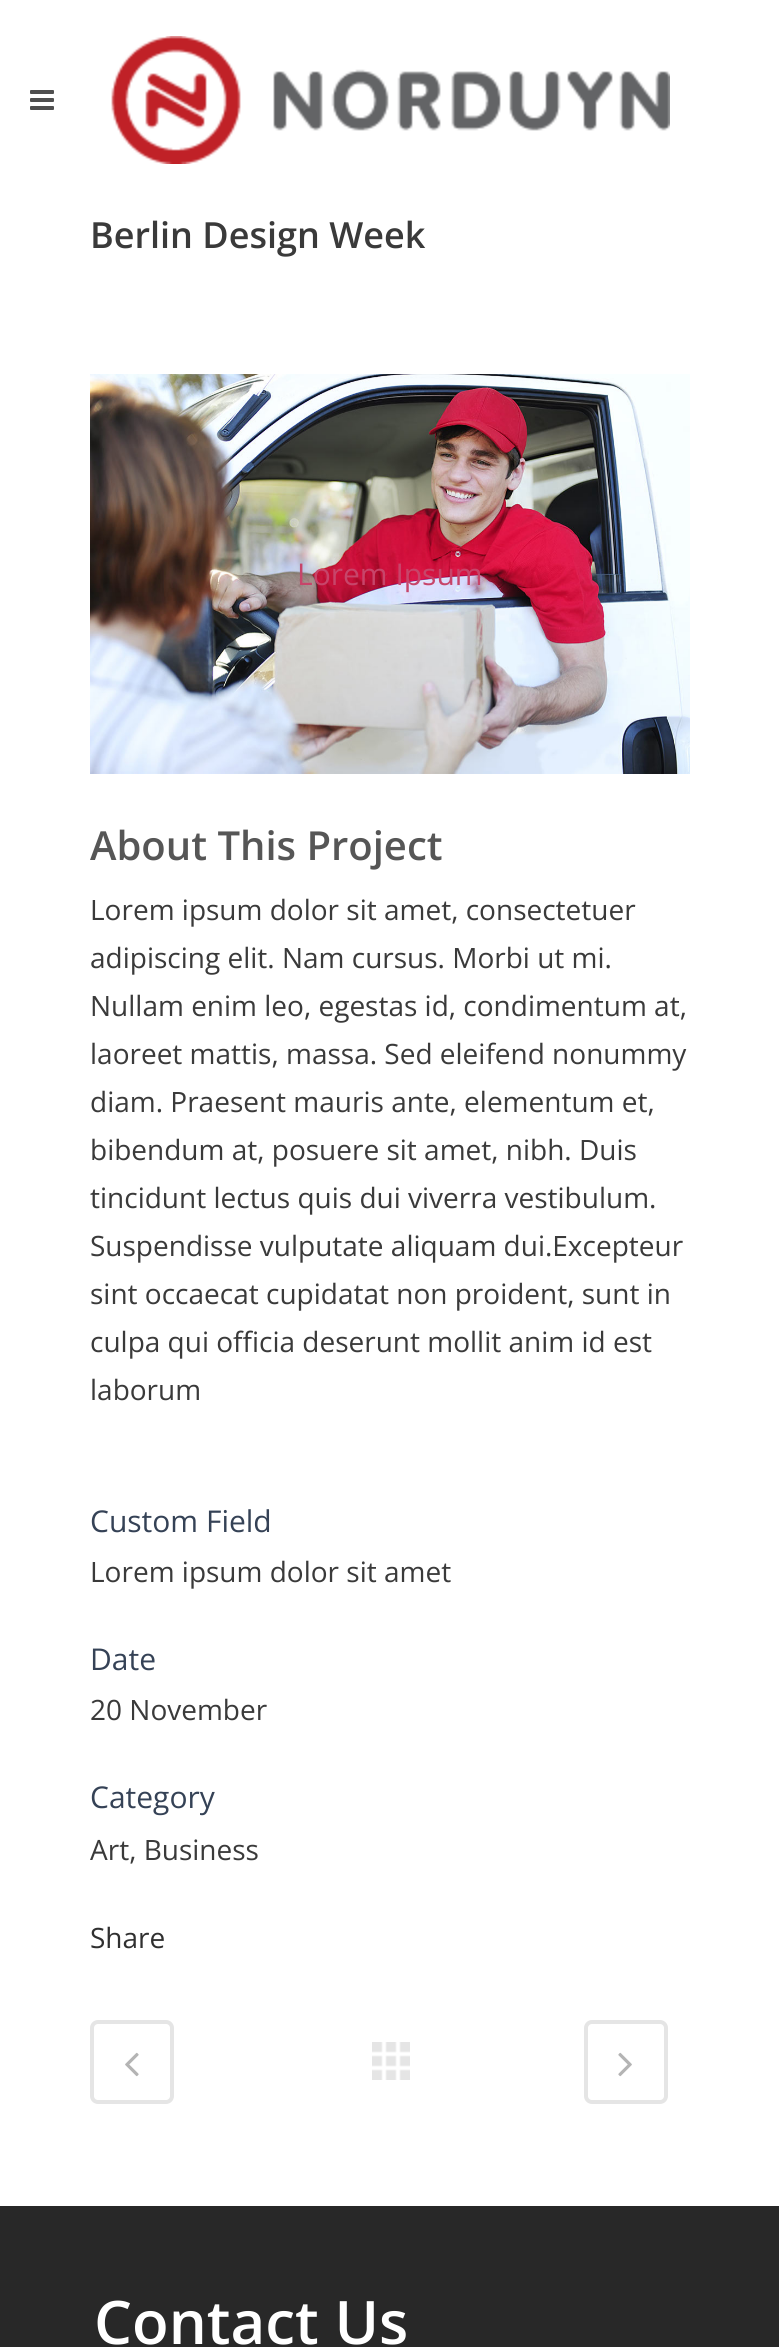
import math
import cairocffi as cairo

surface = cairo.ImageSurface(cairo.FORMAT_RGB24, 779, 2347)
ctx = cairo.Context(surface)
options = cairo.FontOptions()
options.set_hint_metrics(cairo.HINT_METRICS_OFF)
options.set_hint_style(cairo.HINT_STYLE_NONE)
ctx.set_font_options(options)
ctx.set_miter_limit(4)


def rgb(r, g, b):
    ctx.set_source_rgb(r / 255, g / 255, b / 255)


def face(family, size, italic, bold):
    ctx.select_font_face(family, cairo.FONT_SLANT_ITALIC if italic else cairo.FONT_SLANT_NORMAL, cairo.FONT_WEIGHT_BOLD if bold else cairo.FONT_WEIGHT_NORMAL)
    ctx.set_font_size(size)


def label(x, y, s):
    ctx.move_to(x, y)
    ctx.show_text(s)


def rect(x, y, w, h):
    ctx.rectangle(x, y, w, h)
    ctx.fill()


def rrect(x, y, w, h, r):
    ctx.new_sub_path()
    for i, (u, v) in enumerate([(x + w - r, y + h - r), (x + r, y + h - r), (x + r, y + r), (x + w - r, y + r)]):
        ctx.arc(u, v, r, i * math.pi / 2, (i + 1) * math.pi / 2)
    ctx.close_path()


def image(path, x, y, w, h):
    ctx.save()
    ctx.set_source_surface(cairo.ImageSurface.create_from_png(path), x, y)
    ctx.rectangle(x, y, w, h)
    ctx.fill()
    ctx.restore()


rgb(255, 255, 255)
ctx.paint()
image('image0.png', 30, 90, 24, 20)
image('image1.png', 111, 36, 559, 128)
face('Open Sans SemiBold', 36, 0, 0)
rgb(58, 58, 58)
label(90, 248, 'Berlin Design Week')
image('image2.png', 90, 374, 600, 400)
face('Open Sans', 30, 0, 0)
rgb(199, 69, 106)
label(297, 585, 'Lorem Ipsum')
face('Open Sans SemiBold', 40, 0, 0)
rgb(86, 86, 86)
label(90, 860, 'About This Project')
face('Open Sans', 28, 0, 0)
rgb(58, 58, 58)
label(90, 920, 'Lorem ipsum dolor sit amet, consectetuer')
label(90, 968, 'adipiscing elit. Nam cursus. Morbi ut mi.')
label(90, 1016, 'Nullam enim leo, egestas id, condimentum at,')
label(90, 1064, 'laoreet mattis, massa. Sed eleifend nonummy')
label(90, 1112, 'diam. Praesent mauris ante, elementum et,')
label(90, 1160, 'bibendum at, posuere sit amet, nibh. Duis')
label(90, 1208, 'tincidunt lectus quis dui viverra vestibulum.')
label(90, 1256, 'Suspendisse vulputate aliquam dui.Excepteur')
label(90, 1304, 'sint occaecat cupidatat non proident, sunt in')
label(90, 1352, 'culpa qui officia deserunt mollit anim id est')
label(90, 1400, 'laborum')
face('Open Sans', 30, 0, 0)
rgb(53, 66, 86)
label(90, 1532, 'Custom Field')
face('Open Sans', 28, 0, 0)
rgb(58, 58, 58)
label(90, 1582, 'Lorem ipsum dolor sit amet')
face('Open Sans', 30, 0, 0)
rgb(53, 66, 86)
label(90, 1670, 'Date')
face('Open Sans', 28, 0, 0)
rgb(58, 58, 58)
label(90, 1720, '20 November')
face('Open Sans', 30, 0, 0)
rgb(53, 66, 86)
label(90, 1808, 'Category')
face('Open Sans', 28, 0, 0)
rgb(58, 58, 58)
label(90, 1860, 'Art, Business')
rgb(48, 48, 48)
label(90, 1948, 'Share')
rrect(92, 2022, 80, 80, 6)
rgb(229, 229, 229)
ctx.set_line_width(4)
ctx.stroke()
image('image3.png', 125, 2052, 14, 25)
image('image4.png', 372, 2042, 38, 38)
rrect(586, 2022, 80, 80, 6)
ctx.stroke()
image('image5.png', 618, 2052, 14, 25)
rgb(40, 40, 40)
rect(0, 2206, 779, 141)
face('Open Sans SemiBold', 60, 0, 0)
rgb(255, 255, 255)
label(94, 2344, 'Contact Us')
surface.write_to_png('render.png')
